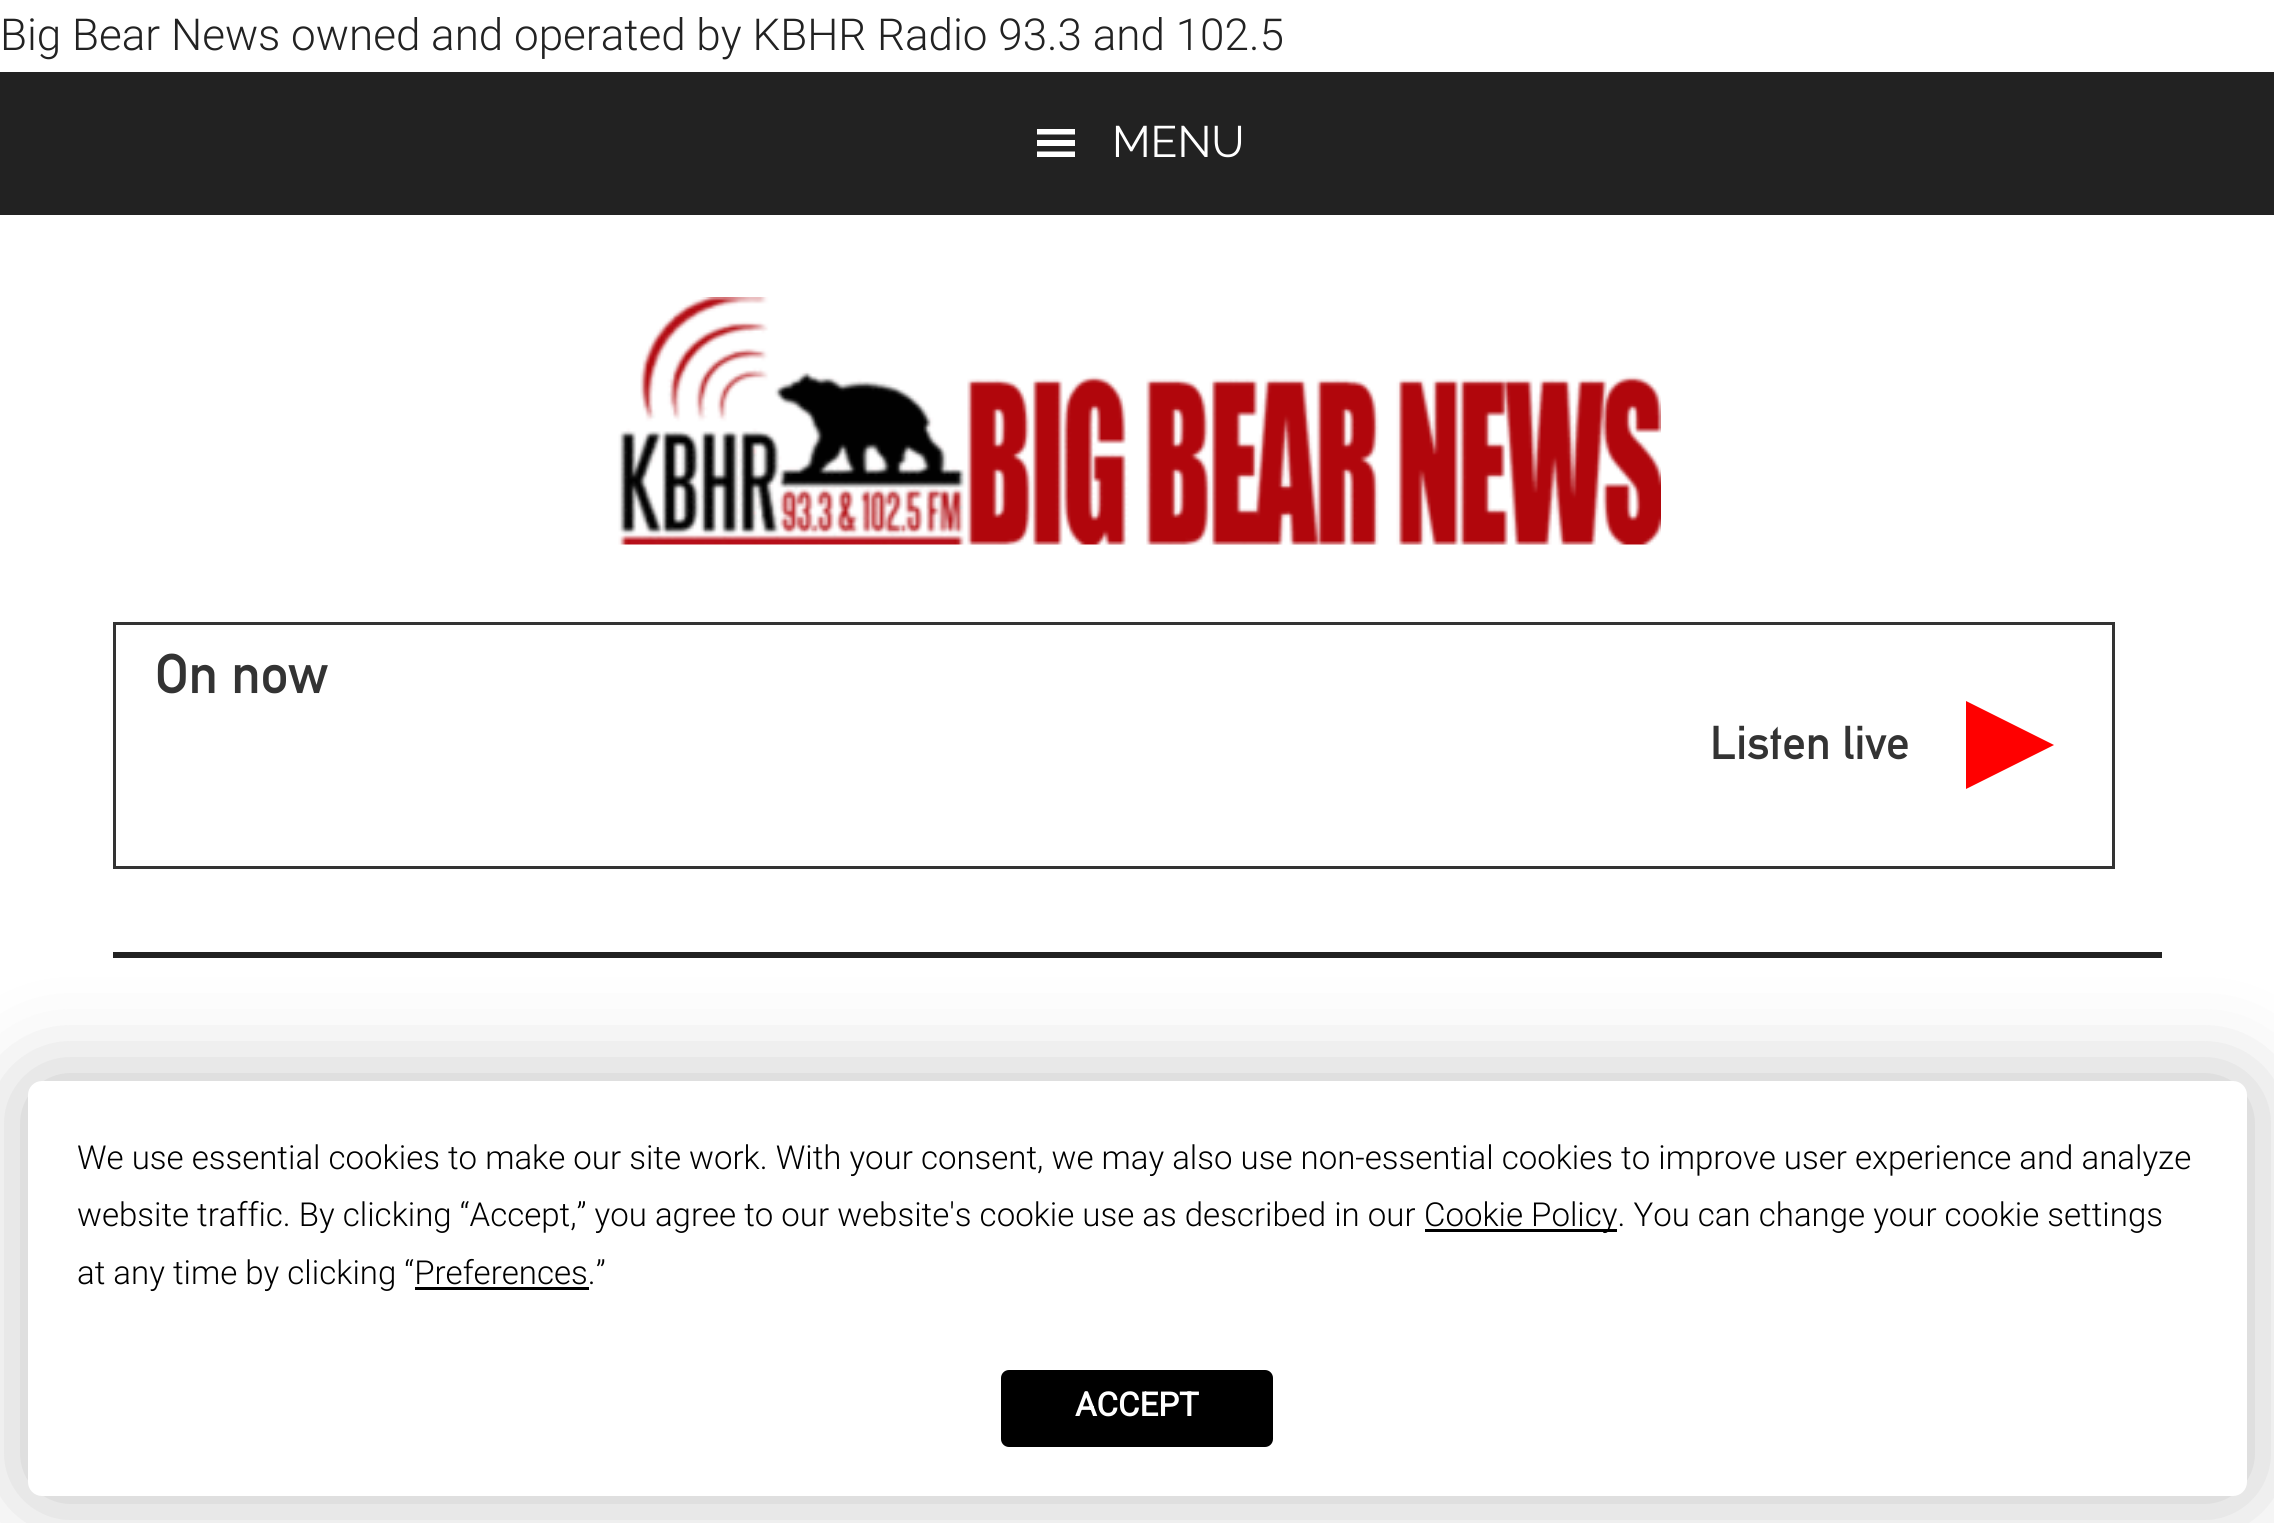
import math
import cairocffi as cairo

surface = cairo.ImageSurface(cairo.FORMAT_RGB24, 2274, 1523)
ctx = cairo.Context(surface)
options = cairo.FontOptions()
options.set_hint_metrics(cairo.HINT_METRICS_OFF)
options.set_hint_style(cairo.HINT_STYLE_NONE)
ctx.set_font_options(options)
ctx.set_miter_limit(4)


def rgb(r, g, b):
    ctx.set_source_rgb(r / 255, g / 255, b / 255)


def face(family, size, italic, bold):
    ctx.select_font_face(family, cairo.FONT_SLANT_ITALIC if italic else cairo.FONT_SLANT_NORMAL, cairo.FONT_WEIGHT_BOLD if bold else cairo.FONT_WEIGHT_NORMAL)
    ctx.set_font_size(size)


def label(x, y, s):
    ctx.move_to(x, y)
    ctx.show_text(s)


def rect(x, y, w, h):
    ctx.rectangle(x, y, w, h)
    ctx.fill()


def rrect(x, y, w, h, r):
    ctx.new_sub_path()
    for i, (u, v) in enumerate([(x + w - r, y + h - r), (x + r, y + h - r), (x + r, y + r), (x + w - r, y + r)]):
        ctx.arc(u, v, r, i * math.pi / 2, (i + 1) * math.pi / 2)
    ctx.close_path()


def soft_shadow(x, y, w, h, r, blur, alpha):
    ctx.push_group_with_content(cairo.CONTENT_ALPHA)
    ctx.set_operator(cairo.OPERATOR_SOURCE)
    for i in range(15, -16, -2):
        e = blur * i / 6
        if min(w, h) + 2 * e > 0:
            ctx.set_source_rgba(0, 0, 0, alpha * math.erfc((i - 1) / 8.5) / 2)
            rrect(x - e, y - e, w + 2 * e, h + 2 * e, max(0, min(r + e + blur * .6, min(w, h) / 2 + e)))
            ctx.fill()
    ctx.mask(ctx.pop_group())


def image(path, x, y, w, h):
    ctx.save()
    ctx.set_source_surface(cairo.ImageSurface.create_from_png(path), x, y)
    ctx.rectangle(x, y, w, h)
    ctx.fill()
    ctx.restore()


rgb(255, 255, 255)
ctx.paint()
face('Roboto Light', 44, 0, 0)
rgb(34, 34, 34)
label(0, 50, 'Big Bear News owned and operated by KBHR Radio 93.3 and 102.5')
rect(0, 72, 2274, 143)
rgb(255, 255, 255)
ctx.new_path()
ctx.move_to(1037, 157)
ctx.line_to(1075, 157)
ctx.line_to(1075, 151.5)
ctx.line_to(1037, 151.5)
ctx.close_path()
ctx.move_to(1037, 129)
ctx.line_to(1037, 134.5)
ctx.line_to(1075, 134.5)
ctx.line_to(1075, 129)
ctx.close_path()
ctx.move_to(1037, 146)
ctx.line_to(1075, 146)
ctx.line_to(1075, 140)
ctx.line_to(1037, 140)
ctx.close_path()
ctx.fill()
face('Raleway', 44, 0, 0)
label(1112, 157, 'MENU')
rgb(34, 34, 34)
rect(113, 952, 2049, 6)
image('image0.png', 618, 297, 1043, 248)
ctx.rectangle(114.5, 623.5, 1999, 244)
rgb(51, 51, 51)
ctx.set_line_width(3)
ctx.stroke()
face('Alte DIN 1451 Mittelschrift', 55, 0, 0)
label(155, 693, 'On now')
face('Alte DIN 1451 Mittelschrift', 46.75, 0, 0)
label(1710, 759, 'Listen live')
rgb(255, 0, 0)
ctx.new_path()
ctx.move_to(1966, 789)
ctx.line_to(1966, 701)
ctx.line_to(2054, 745)
ctx.close_path()
ctx.fill()
rgb(0, 0, 0)
soft_shadow(28, 1081, 2219, 415, 14, 48, 0.25)
rgb(255, 255, 255)
rrect(28, 1081, 2219, 415, 14)
ctx.fill()
face('Roboto Light', 33, 0, 0)
rgb(0, 0, 0)
label(77, 1169, 'We use essential cookies to make our site work. With your consent, we may also use non-essential cookies to improve user experience and analyze')
label(77, 1226, 'website traffic. By clicking “Accept,” you agree to our website\'s cookie use as described in our')
rect(1425, 1229, 192, 3)
label(1424, 1226, 'Cookie Policy. You can change your cookie settings')
label(77, 1284, 'at any time by clicking “Preferences.”')
rect(415, 1287, 174, 3)
rrect(1002.5, 1371.5, 269, 74, 6.5)
ctx.fill_preserve()
ctx.stroke()
face('Roboto', 33, 0, 1)
rgb(255, 255, 255)
label(1075, 1416, 'ACCEPT')
surface.write_to_png('render.png')
